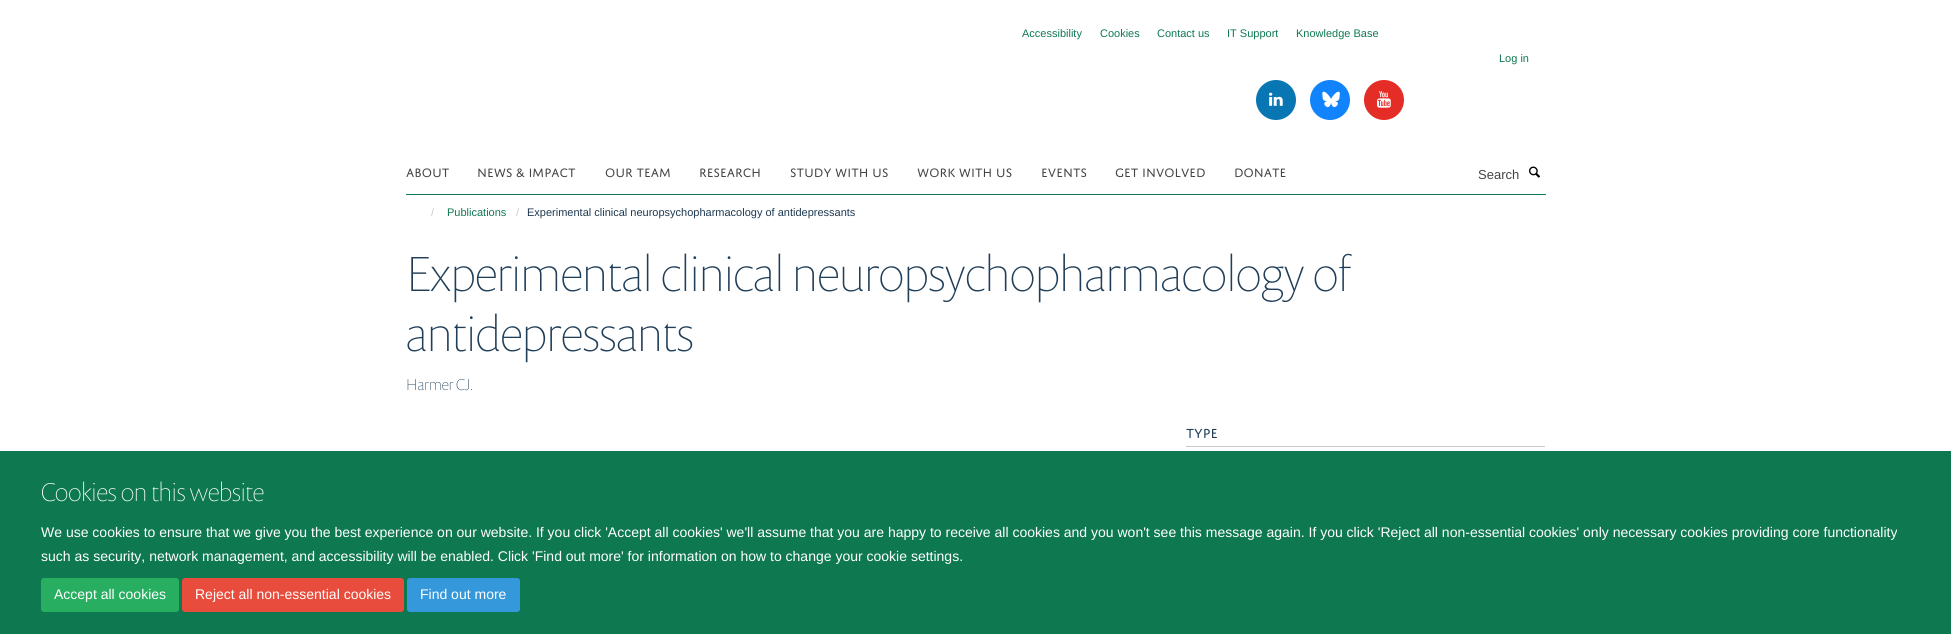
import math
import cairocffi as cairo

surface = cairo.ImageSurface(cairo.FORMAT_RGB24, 1951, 634)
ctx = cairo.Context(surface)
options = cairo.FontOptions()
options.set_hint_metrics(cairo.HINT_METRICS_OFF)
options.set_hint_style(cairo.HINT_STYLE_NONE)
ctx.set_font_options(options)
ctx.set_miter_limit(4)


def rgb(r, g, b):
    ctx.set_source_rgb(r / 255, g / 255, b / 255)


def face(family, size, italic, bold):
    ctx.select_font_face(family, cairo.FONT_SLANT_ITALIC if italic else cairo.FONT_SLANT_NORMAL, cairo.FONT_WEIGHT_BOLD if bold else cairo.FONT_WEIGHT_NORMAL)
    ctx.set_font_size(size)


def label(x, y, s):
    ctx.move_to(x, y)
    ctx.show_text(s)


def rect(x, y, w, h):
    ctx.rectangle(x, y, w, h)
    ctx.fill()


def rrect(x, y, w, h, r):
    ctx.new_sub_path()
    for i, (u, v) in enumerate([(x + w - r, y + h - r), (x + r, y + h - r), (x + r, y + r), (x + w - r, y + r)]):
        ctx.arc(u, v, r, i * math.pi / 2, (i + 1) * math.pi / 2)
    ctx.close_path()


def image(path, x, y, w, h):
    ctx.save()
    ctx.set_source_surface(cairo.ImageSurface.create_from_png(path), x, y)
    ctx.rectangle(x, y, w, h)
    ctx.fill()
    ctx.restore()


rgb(255, 255, 255)
ctx.paint()
face('Liberation Sans', 11, 0, 0)
rgb(14, 121, 81)
label(1022, 37, 'Accessibility')
label(1100, 37, 'Cookies')
label(1157, 37, 'Contact us')
label(1227, 37, 'IT Support')
label(1296, 37, 'Knowledge Base')
label(1499, 62, 'Log in')
rgb(9, 118, 180)
ctx.new_path()
ctx.arc(1276, 100, 20, 0, 2 * math.pi)
ctx.fill()
image('image0.png', 1269, 92, 14, 14)
rgb(17, 131, 252)
ctx.arc(1330, 100, 20, 0, 2 * math.pi)
ctx.fill()
image('image1.png', 1322, 91, 18, 17)
rgb(229, 45, 39)
ctx.arc(1384, 100, 20, 0, 2 * math.pi)
ctx.fill()
image('image2.png', 1377, 91, 14, 17)
rgb(14, 121, 81)
rect(406, 194, 1140, 1)
face('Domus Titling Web', 13, 0, 0)
rgb(68, 68, 68)
label(406, 177, 'ABOUT')
label(477, 177, 'NEWS & IMPACT')
label(605, 177, 'OUR TEAM')
label(699, 177, 'RESEARCH')
label(790, 177, 'STUDY WITH US')
label(917, 177, 'WORK WITH US')
label(1041, 177, 'EVENTS')
label(1115, 177, 'GET INVOLVED')
label(1234, 177, 'DONATE')
face('Liberation Sans', 13, 0, 0)
label(1478, 179, 'Search')
image('image3.png', 1529, 166, 11, 12)
face('Liberation Sans', 11, 0, 0)
rgb(204, 204, 204)
label(431, 216, '/')
rgb(14, 121, 81)
label(447, 216, 'Publications')
rgb(204, 204, 204)
label(516, 216, '/')
rgb(29, 56, 80)
label(527, 216, 'Experimental clinical neuropsychopharmacology of antidepressants')
face('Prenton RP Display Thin', 50, 0, 0)
rgb(32, 62, 88)
label(406, 291, 'Experimental clinical neuropsychopharmacology of')
label(406, 351, 'antidepressants')
face('Prenton RP Display Thin', 16, 0, 0)
label(406, 390, 'Harmer CJ.')
rgb(198, 202, 207)
rect(1186, 446, 359, 1)
face('Domus Titling Web', 14, 0, 0)
rgb(32, 62, 88)
label(1186, 438, 'TYPE')
rgb(14, 121, 81)
rect(0, 451, 1951, 183)
face('Prenton RP Display Thin', 26, 0, 0)
rgb(255, 255, 255)
label(41, 501, 'Cookies on this website')
face('Liberation Sans', 14, 0, 0)
label(41, 537, 'We use cookies to ensure that we give you the best experience on our website. If you click \'Accept all cookies\' we\'ll assume that you are happy to receive all cookies and you won\'t see this message again. If you click \'Reject all non-essential cookies\' only necessary cookies providing core functionality')
label(41, 561, 'such as security, network management, and accessibility will be enabled. Click \'Find out more\' for information on how to change your cookie settings.')
rgb(39, 174, 96)
rrect(41.5, 578.5, 137, 33, 2.5)
ctx.fill_preserve()
ctx.set_line_width(1)
ctx.stroke()
rgb(255, 255, 255)
label(54, 599, 'Accept all cookies')
rgb(231, 76, 60)
rrect(182.5, 578.5, 221, 33, 2.5)
ctx.fill_preserve()
ctx.stroke()
rgb(255, 255, 255)
label(195, 599, 'Reject all non-essential cookies')
rgb(52, 152, 219)
rrect(407.5, 578.5, 112, 33, 2.5)
ctx.fill_preserve()
ctx.stroke()
rgb(255, 255, 255)
label(420, 599, 'Find out more')
surface.write_to_png('render.png')
